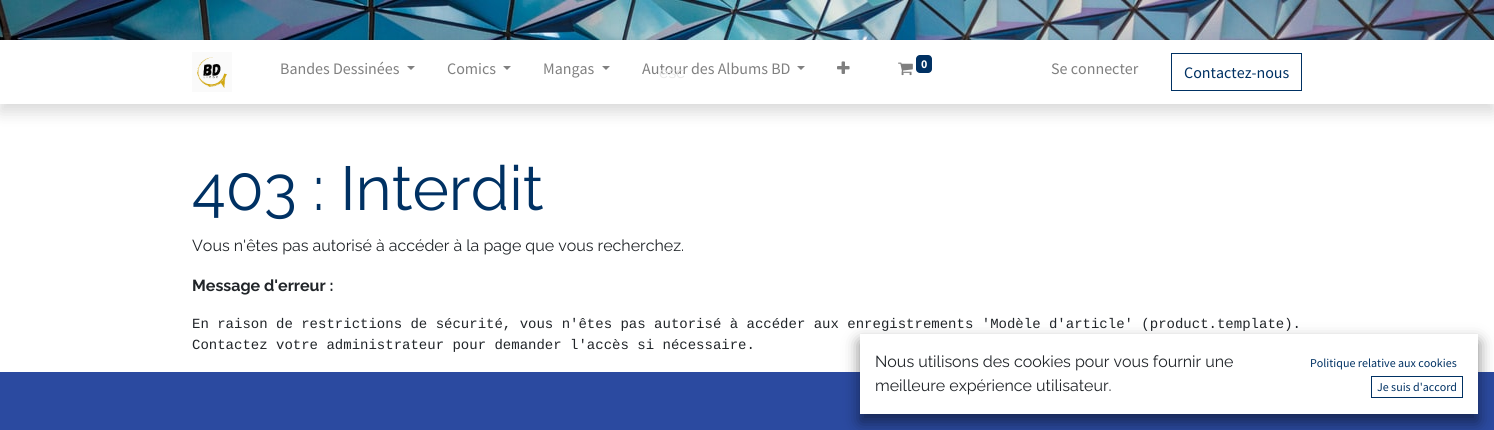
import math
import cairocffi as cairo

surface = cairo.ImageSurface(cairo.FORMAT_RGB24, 1494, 430)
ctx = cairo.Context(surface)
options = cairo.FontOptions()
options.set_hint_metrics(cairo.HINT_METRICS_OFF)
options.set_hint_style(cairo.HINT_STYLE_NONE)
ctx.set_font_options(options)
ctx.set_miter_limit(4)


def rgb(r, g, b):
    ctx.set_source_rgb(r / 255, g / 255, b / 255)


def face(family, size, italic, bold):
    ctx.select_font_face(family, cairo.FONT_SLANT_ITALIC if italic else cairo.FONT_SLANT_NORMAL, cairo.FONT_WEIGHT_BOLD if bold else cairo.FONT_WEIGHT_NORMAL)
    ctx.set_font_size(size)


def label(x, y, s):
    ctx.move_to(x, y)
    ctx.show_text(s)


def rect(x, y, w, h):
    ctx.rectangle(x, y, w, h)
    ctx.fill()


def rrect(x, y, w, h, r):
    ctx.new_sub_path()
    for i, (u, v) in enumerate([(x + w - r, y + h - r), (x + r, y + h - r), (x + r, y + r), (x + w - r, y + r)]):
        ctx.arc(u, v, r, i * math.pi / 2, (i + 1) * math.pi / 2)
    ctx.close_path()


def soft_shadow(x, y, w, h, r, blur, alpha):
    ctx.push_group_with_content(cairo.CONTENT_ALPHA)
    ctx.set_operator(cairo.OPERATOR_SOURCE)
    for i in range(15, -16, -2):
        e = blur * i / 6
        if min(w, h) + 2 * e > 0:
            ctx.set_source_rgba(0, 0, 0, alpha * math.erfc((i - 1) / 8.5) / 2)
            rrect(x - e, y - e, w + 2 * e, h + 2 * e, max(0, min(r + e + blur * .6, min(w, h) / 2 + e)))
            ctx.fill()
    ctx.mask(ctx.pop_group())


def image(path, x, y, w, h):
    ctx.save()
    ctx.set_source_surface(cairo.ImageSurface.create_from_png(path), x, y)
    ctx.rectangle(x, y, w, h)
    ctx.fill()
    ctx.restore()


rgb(255, 255, 255)
ctx.paint()
image('image0.png', 0, 0, 1494, 40)
ctx.save()
ctx.set_fill_rule(cairo.FILL_RULE_EVEN_ODD)
ctx.new_path()
ctx.move_to(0, 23)
ctx.line_to(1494, 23)
ctx.line_to(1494, 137)
ctx.line_to(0, 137)
ctx.close_path()
ctx.move_to(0, 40)
ctx.line_to(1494, 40)
ctx.line_to(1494, 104)
ctx.line_to(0, 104)
ctx.close_path()
ctx.clip()
rgb(0, 0, 0)
soft_shadow(0, 48, 1494, 64, 0, 8, 0.15)
ctx.restore()
image('image1.png', 192, 52, 40, 40)
face('Source Sans Pro', 16, 0, 0)
rgb(128, 128, 128)
label(280, 74, 'Bandes Dessinées')
ctx.new_path()
ctx.move_to(407, 66)
ctx.line_to(415, 66)
ctx.line_to(411, 70)
ctx.close_path()
ctx.fill()
label(447, 74, 'Comics')
ctx.new_path()
ctx.move_to(503, 66)
ctx.line_to(511, 66)
ctx.line_to(507, 70)
ctx.close_path()
ctx.fill()
label(543, 74, 'Mangas')
ctx.new_path()
ctx.move_to(602, 66)
ctx.line_to(610, 66)
ctx.line_to(606, 70)
ctx.close_path()
ctx.fill()
label(642, 74, 'Autour des Albums BD')
ctx.new_path()
ctx.move_to(797, 66)
ctx.line_to(805, 66)
ctx.line_to(801, 70)
ctx.close_path()
ctx.fill()
image('image2.png', 837, 61, 13, 13)
image('image3.png', 898, 62, 15, 14)
rgb(0, 49, 99)
rrect(916, 55, 16, 18, 4)
ctx.fill()
face('Source Sans Pro', 12, 0, 1)
rgb(255, 255, 255)
label(921, 68, '0')
face('Source Sans Pro', 16, 0, 0)
rgb(128, 128, 128)
label(1051, 74, 'Se connecter')
ctx.rectangle(1171.5, 53.5, 130, 37)
rgb(0, 49, 99)
ctx.set_line_width(1)
ctx.stroke()
label(1184, 78, 'Contactez-nous')
face('Raleway', 62, 0, 0)
label(192, 210, '403 : Interdit')
face('Raleway', 16, 0, 0)
rgb(33, 37, 41)
label(192, 251, 'Vous n\'êtes pas autorisé à accéder à la page que vous recherchez.')
face('Raleway', 16, 0, 1)
label(192, 291, 'Message d\'erreur :')
face('Liberation Mono', 14, 0, 0)
label(192, 328, 'En raison de restrictions de sécurité, vous n\'êtes pas autorisé à accéder aux enregistrements \'Modèle d\'article\' (product.template).')
label(192, 349, 'Contactez votre administrateur pour demander l\'accès si nécessaire.')
rgb(43, 74, 160)
rect(0, 372, 1494, 58)
rgb(0, 0, 0)
soft_shadow(860, 342, 618, 80, 0, 8, 0.5)
rgb(255, 255, 255)
rect(860, 334, 618, 80)
face('Raleway', 16, 0, 0)
rgb(33, 37, 41)
label(875, 367, 'Nous utilisons des cookies pour vous fournir une')
label(875, 391, 'meilleure expérience utilisateur.')
face('Source Sans Pro', 12, 0, 0)
rgb(0, 49, 99)
label(1310, 367, 'Politique relative aux cookies')
ctx.rectangle(1371.5, 376.5, 91, 21)
ctx.stroke()
label(1377, 391, 'Je suis d\'accord')
face('Raleway', 16, 0, 0)
rgb(231, 231, 231)
label(659, 78, 'esc')
surface.write_to_png('render.png')
